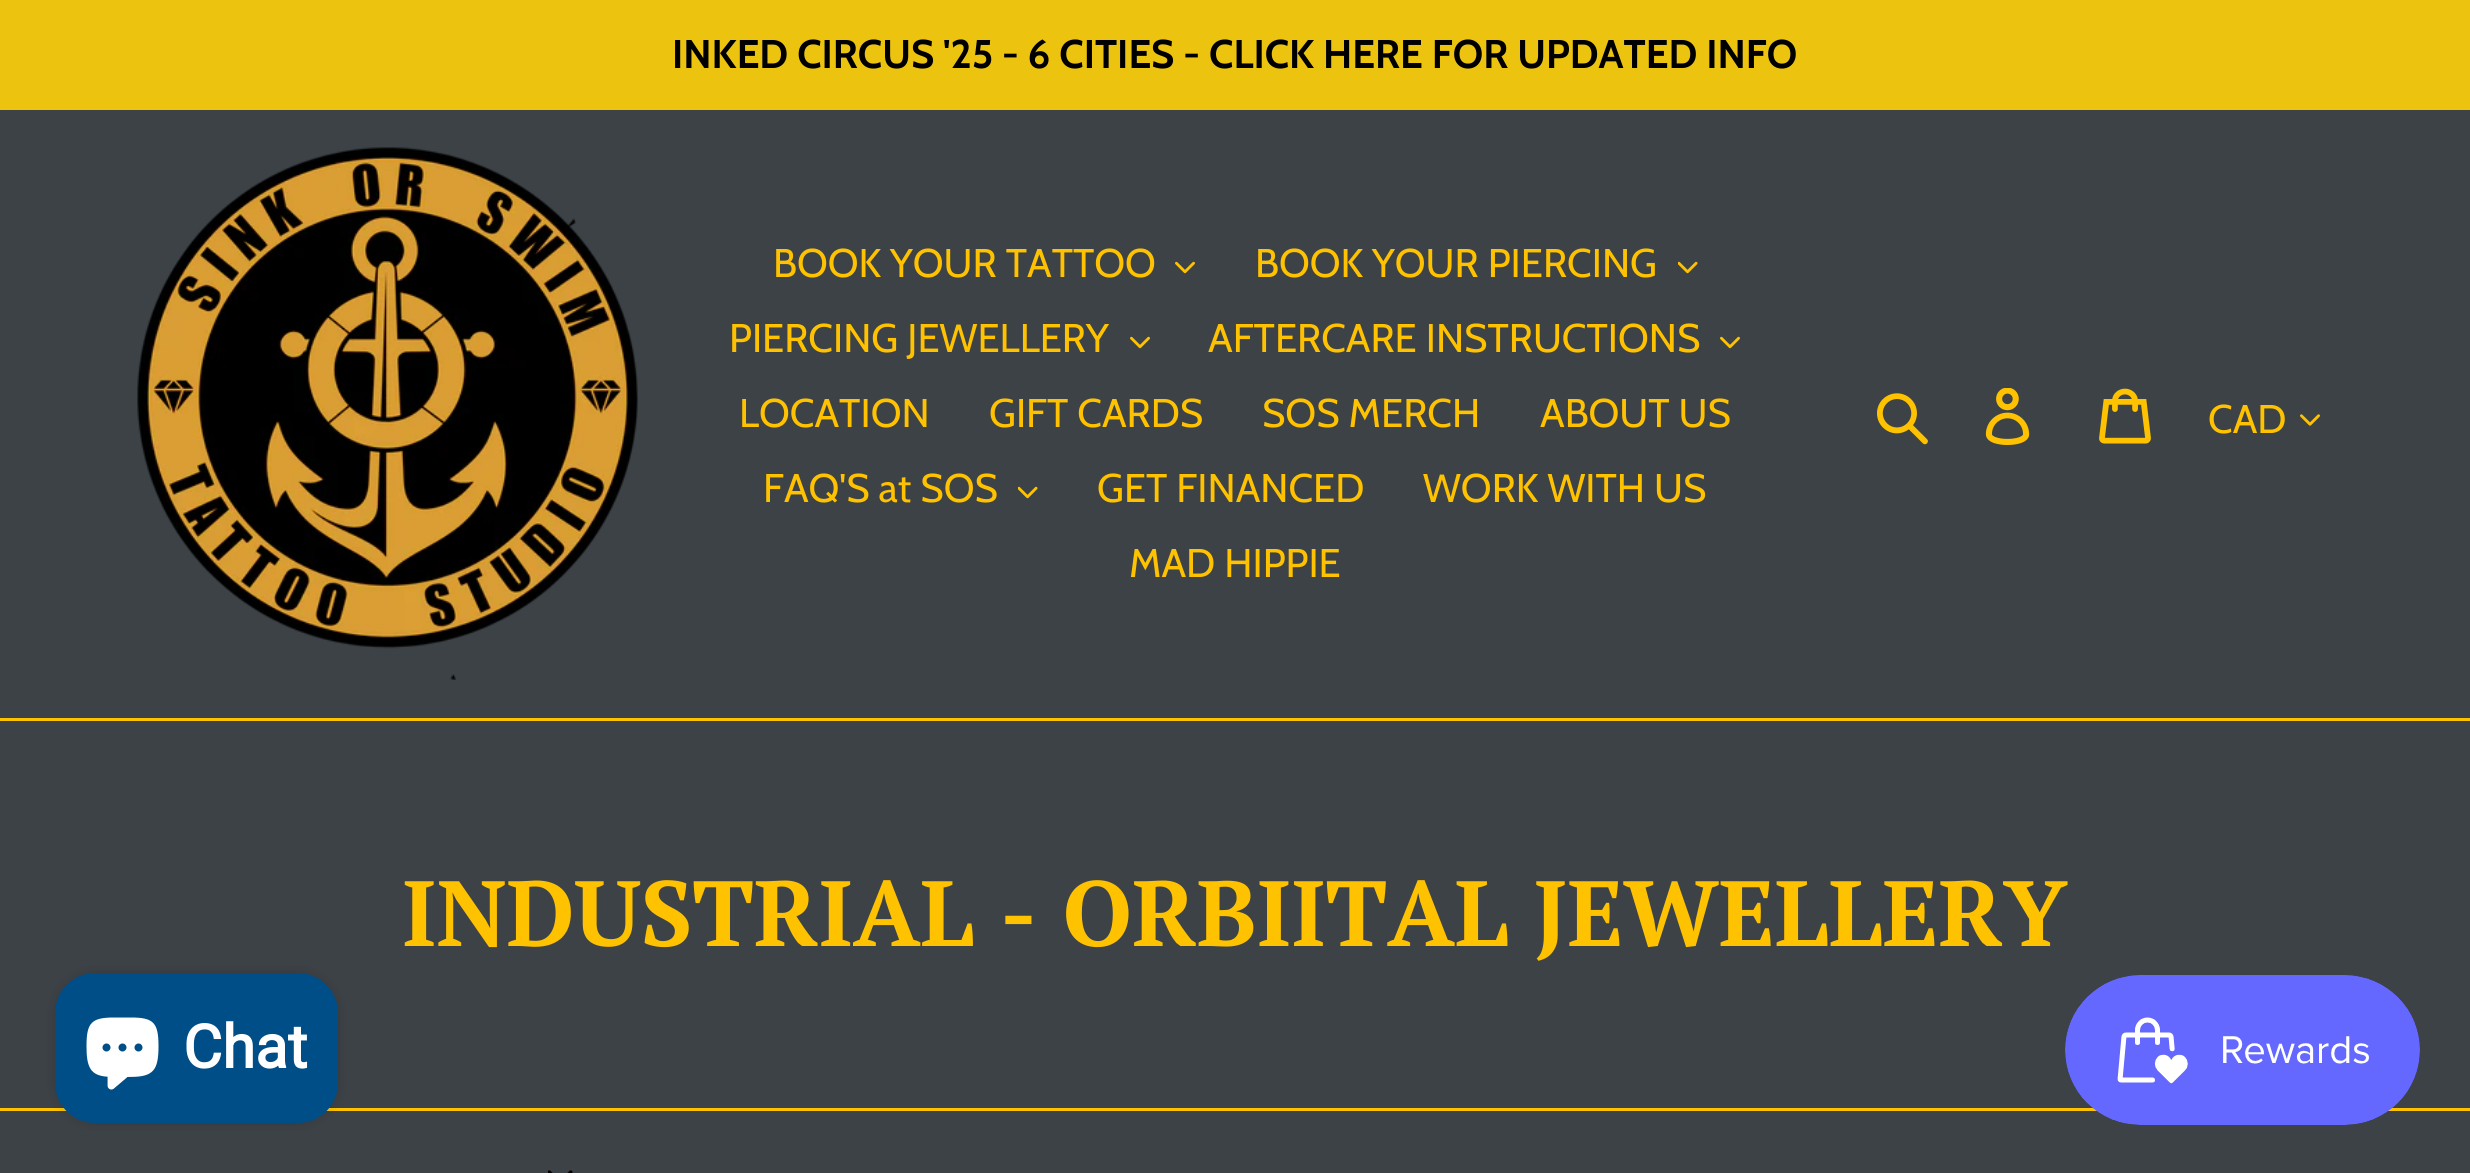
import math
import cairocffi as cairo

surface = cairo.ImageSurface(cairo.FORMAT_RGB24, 2470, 1173)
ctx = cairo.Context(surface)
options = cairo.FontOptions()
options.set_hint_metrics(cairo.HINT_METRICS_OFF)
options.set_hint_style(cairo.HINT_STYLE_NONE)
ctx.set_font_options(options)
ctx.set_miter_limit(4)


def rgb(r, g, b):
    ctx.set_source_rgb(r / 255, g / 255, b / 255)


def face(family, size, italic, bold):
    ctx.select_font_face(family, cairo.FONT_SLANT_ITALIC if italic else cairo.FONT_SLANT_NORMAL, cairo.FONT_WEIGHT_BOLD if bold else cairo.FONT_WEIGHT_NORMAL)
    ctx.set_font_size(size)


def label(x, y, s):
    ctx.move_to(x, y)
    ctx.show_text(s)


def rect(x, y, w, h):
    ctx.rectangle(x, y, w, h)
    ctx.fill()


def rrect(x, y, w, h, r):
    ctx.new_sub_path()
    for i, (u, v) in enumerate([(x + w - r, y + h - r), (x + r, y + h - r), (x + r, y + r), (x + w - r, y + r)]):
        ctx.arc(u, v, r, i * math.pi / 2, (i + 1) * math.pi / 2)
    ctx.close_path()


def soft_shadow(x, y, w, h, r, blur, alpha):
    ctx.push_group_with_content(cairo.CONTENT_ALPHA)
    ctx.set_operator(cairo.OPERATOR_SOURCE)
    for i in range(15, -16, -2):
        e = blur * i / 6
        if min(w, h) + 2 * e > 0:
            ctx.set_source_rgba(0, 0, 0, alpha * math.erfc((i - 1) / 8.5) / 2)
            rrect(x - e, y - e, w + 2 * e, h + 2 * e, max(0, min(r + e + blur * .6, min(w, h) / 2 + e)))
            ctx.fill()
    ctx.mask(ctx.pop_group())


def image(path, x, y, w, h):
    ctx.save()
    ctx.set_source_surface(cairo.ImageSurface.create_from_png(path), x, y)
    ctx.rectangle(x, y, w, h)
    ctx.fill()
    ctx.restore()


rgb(61, 66, 70)
ctx.paint()
rgb(236, 196, 16)
rect(0, 0, 2470, 110)
face('Cabin', 40, 0, 1)
rgb(0, 0, 0)
label(672, 68, 'INKED CIRCUS \'25 - 6 CITIES - CLICK HERE FOR UPDATED INFO')
rgb(255, 194, 0)
rect(0, 718, 2470, 3)
image('image0.png', 137, 147, 501, 533)
face('Cabin', 40, 0, 0)
label(773, 277, 'BOOK YOUR TATTOO')
image('image1.png', 1175, 261, 20, 13)
label(1255, 277, 'BOOK YOUR PIERCING')
image('image2.png', 1678, 261, 20, 13)
label(729, 352, 'PIERCING JEWELLERY')
image('image1.png', 1130, 336, 20, 13)
label(1208, 352, 'AFTERCARE INSTRUCTIONS')
image('image1.png', 1720, 336, 20, 13)
label(739, 427, 'LOCATION')
label(989, 427, 'GIFT CARDS')
label(1262, 427, 'SOS MERCH')
label(1540, 427, 'ABOUT US')
label(763, 502, 'FAQ\'S at SOS')
image('image2.png', 1018, 486, 20, 13)
label(1097, 502, 'GET FINANCED')
label(1423, 502, 'WORK WITH US')
label(1129, 577, 'MAD HIPPIE')
image('image3.png', 1877, 393, 51, 52)
image('image4.png', 1985, 388, 45, 57)
image('image5.png', 2099, 388, 52, 56)
label(2208, 433, 'CAD')
image('image6.png', 2300, 414, 20, 12)
face('PT Serif', 92.5, 0, 1)
label(402, 946, 'INDUSTRIAL - ORBIITAL JEWELLERY')
rect(0, 1108, 2470, 3)
image('image7.png', 548, 1170, 25, 3)
rgb(0, 0, 0)
soft_shadow(55, 973, 283, 150, 40, 6, 0.15)
rgb(0, 78, 135)
rrect(55, 973, 283, 150, 40)
ctx.fill()
image('image8.png', 86, 1017, 73, 73)
face('Roboto', 60, 0, 1)
rgb(255, 255, 255)
label(183, 1068, 'Chat')
image('image9.png', 2065, 975, 355, 150)
surface.write_to_png('render.png')
